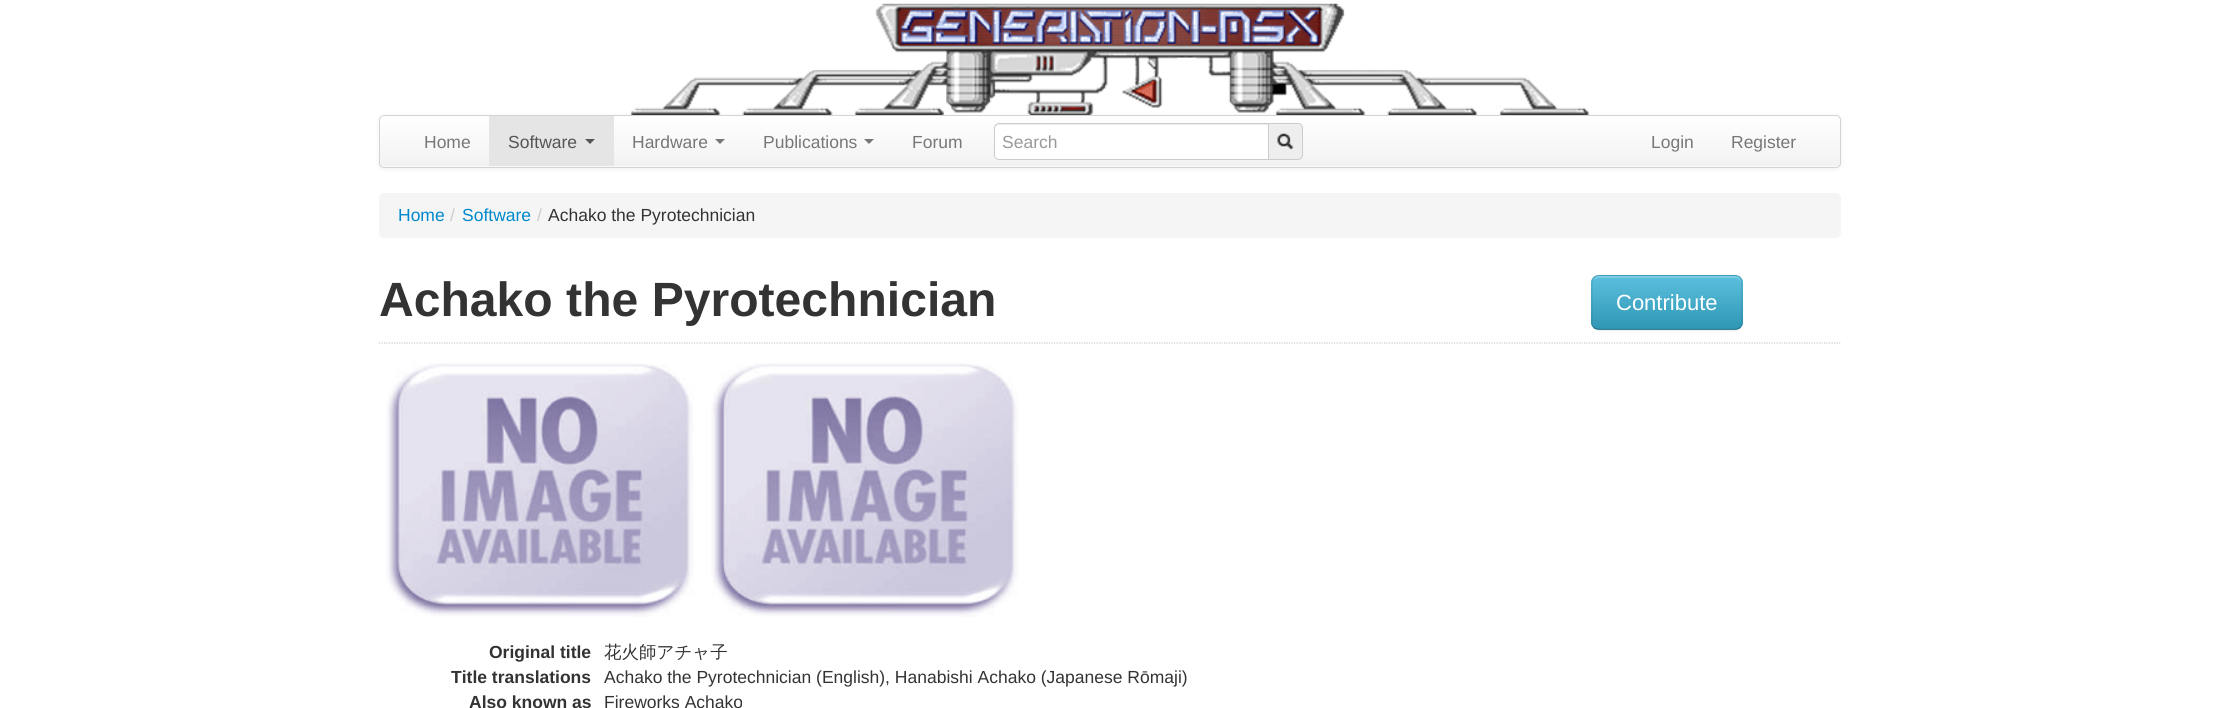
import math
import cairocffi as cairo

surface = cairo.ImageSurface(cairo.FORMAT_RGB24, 2220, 708)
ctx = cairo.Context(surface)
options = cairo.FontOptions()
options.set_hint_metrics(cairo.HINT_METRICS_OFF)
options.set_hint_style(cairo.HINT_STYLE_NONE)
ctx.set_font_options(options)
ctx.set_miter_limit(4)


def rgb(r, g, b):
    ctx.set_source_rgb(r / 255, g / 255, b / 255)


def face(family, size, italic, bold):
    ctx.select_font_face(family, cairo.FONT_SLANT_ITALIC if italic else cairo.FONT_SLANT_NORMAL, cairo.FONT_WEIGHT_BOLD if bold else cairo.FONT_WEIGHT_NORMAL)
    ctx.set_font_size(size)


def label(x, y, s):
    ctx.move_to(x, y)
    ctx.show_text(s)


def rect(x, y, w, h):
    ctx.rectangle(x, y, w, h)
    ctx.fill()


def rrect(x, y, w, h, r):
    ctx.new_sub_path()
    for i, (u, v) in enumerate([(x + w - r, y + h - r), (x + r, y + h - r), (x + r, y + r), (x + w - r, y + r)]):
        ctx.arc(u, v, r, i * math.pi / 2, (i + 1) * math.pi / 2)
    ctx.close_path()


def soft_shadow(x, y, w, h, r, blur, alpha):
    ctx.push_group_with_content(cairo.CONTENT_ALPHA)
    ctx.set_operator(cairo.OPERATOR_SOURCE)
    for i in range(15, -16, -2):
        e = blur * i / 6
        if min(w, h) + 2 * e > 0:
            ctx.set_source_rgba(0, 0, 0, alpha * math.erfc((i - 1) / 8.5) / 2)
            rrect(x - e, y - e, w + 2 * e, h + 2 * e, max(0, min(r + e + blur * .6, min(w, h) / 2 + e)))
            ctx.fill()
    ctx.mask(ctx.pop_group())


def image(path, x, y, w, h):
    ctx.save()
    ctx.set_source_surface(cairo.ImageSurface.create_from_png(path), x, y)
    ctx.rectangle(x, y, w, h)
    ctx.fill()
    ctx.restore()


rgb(255, 255, 255)
ctx.paint()
rgb(0, 0, 0)
soft_shadow(379, 116, 1462, 53, 5, 2.5, 0.07)
image('image0.png', 630, 3, 959, 112)
rgb(250, 250, 250)
rrect(379, 115, 1462, 53, 5)
ctx.fill()
ctx.save()
rrect(379, 115, 1462, 53, 5)
ctx.clip()
gradient = cairo.LinearGradient(1110, 116, 1110, 166)
gradient.add_color_stop_rgba(0, 1, 1, 1, 1)
gradient.add_color_stop_rgba(1, 0.949, 0.949, 0.949, 1)
ctx.set_source(gradient)
rect(379, 116, 1462, 50)
ctx.restore()
rrect(379.5, 115.5, 1461, 52, 4.5)
rgb(212, 212, 212)
ctx.set_line_width(1)
ctx.stroke()
face('Liberation Sans', 17.5, 0, 0)
rgb(119, 119, 119)
label(424, 148, 'Home')
rgb(229, 229, 229)
rect(489, 116, 125, 50)
rgb(85, 85, 85)
label(508, 148, 'Software')
ctx.new_path()
ctx.move_to(585, 139)
ctx.line_to(595, 139)
ctx.line_to(590, 144)
ctx.close_path()
ctx.fill()
rgb(119, 119, 119)
label(632, 148, 'Hardware')
ctx.new_path()
ctx.move_to(715, 139)
ctx.line_to(725, 139)
ctx.line_to(720, 144)
ctx.close_path()
ctx.fill()
label(763, 148, 'Publications')
ctx.new_path()
ctx.move_to(864, 139)
ctx.line_to(874, 139)
ctx.line_to(869, 144)
ctx.close_path()
ctx.fill()
label(912, 148, 'Forum')
rgb(238, 238, 238)
ctx.new_path()
ctx.move_to(1268.5, 123.5)
ctx.line_to(1298, 123.5)
ctx.curve_to(1300.5, 123.5, 1302.5, 125.5, 1302.5, 128)
ctx.line_to(1302.5, 155)
ctx.curve_to(1302.5, 157.5, 1300.5, 159.5, 1298, 159.5)
ctx.line_to(1268.5, 159.5)
ctx.close_path()
ctx.fill_preserve()
rgb(204, 204, 204)
ctx.stroke()
rgb(255, 255, 255)
ctx.new_path()
ctx.move_to(999, 123)
ctx.line_to(1269, 123)
ctx.line_to(1269, 160)
ctx.line_to(999, 160)
ctx.curve_to(996, 160, 994, 158, 994, 155)
ctx.line_to(994, 128)
ctx.curve_to(994, 125, 996, 123, 999, 123)
ctx.close_path()
ctx.fill()
rgb(236, 236, 236)
ctx.new_path()
ctx.move_to(999, 125)
ctx.line_to(1268, 125)
ctx.line_to(1268, 124)
ctx.line_to(999, 124)
ctx.curve_to(996, 124, 995, 126, 995, 129)
ctx.curve_to(995, 127, 997, 125, 999, 125)
ctx.close_path()
ctx.fill()
ctx.new_path()
ctx.move_to(999, 123.5)
ctx.line_to(1268.5, 123.5)
ctx.line_to(1268.5, 159.5)
ctx.line_to(999, 159.5)
ctx.curve_to(996.5, 159.5, 994.5, 157.5, 994.5, 155)
ctx.line_to(994.5, 128)
ctx.curve_to(994.5, 125.5, 996.5, 123.5, 999, 123.5)
ctx.close_path()
rgb(204, 204, 204)
ctx.stroke()
rgb(153, 153, 153)
label(1002, 148, 'Search')
image('image1.png', 1277, 133, 17, 17)
rgb(119, 119, 119)
label(1651, 148, 'Login')
label(1731, 148, 'Register')
rgb(245, 245, 245)
rrect(379, 193, 1462, 45, 5)
ctx.fill()
rgb(0, 136, 204)
label(398, 221, 'Home')
rgb(204, 204, 204)
label(450, 221, '/')
rgb(0, 136, 204)
label(462, 221, 'Software')
rgb(204, 204, 204)
label(537, 221, '/')
rgb(51, 51, 51)
label(548, 221, 'Achako the Pyrotechnician')
face('Liberation Sans', 48.1, 0, 1)
label(379, 316, 'Achako the Pyrotechnician')
rgb(0, 0, 0)
soft_shadow(1591, 276, 152, 55, 8, 1, 0.05)
rgb(73, 175, 205)
rrect(1591, 275, 152, 55, 8)
ctx.fill()
ctx.save()
rrect(1591, 275, 152, 55, 8)
ctx.clip()
gradient = cairo.LinearGradient(1667, 276, 1667, 329)
gradient.add_color_stop_rgba(0, 0.357, 0.753, 0.871, 1)
gradient.add_color_stop_rgba(1, 0.184, 0.588, 0.706, 1)
ctx.set_source(gradient)
rect(1591, 276, 152, 53)
ctx.restore()
ctx.set_source_rgba(1, 1, 1, 0.2)
ctx.new_path()
ctx.move_to(1599, 278)
ctx.line_to(1735, 278)
ctx.curve_to(1738, 278, 1741, 280, 1741, 284)
ctx.line_to(1741, 282)
ctx.curve_to(1741, 279, 1738, 276, 1735, 276)
ctx.line_to(1599, 276)
ctx.curve_to(1596, 276, 1594, 278, 1593, 280)
ctx.curve_to(1595, 279, 1597, 278, 1599, 278)
ctx.close_path()
ctx.fill()
ctx.new_path()
ctx.move_to(1740, 327.5)
ctx.curve_to(1738.5, 328.5, 1737, 329.5, 1735, 329.5)
ctx.line_to(1599, 329.5)
ctx.curve_to(1597, 329.5, 1595, 328.5, 1594, 327.5)
ctx.set_source_rgba(0, 0, 0, 0.25)
ctx.set_line_width(1.2)
ctx.stroke()
ctx.new_path()
ctx.move_to(1594, 327.5)
ctx.curve_to(1591, 324.5, 1592, 319.5, 1592, 316)
ctx.line_to(1592, 302.5)
ctx.curve_to(1592, 271, 1588, 275.5, 1621.5, 275.5)
ctx.line_to(1712.5, 275.5)
ctx.curve_to(1745.5, 275.5, 1742, 271, 1742, 302.5)
ctx.line_to(1742, 316)
ctx.curve_to(1742, 319.5, 1743, 324.5, 1740, 327.5)
ctx.set_source_rgba(0, 0, 0, 0.1)
ctx.stroke()
face('Liberation Sans', 22, 0, 0)
rgb(255, 255, 255)
label(1616, 310, 'Contribute')
ctx.new_path()
ctx.move_to(379, 343)
ctx.line_to(1841, 343)
rgb(204, 204, 204)
ctx.set_dash([1.25, 1.25])
ctx.stroke()
image('image2.png', 386, 363, 308, 254)
image('image3.png', 711, 363, 308, 254)
face('Liberation Sans', 17.5, 0, 1)
rgb(51, 51, 51)
label(489, 658, 'Original title')
face('WenQuanYi Zen Hei Medium', 17.5, 0, 0)
label(604, 658, '花火師アチャ子')
face('Liberation Sans', 17.5, 0, 1)
label(451, 683, 'Title translations')
face('Liberation Sans', 17.5, 0, 0)
label(604, 683, 'Achako the Pyrotechnician (English), Hanabishi Achako (Japanese Rōmaji)')
face('Liberation Sans', 17.5, 0, 1)
label(469, 708, 'Also known as')
face('Liberation Sans', 17.5, 0, 0)
label(604, 708, 'Fireworks Achako')
surface.write_to_png('render.png')
